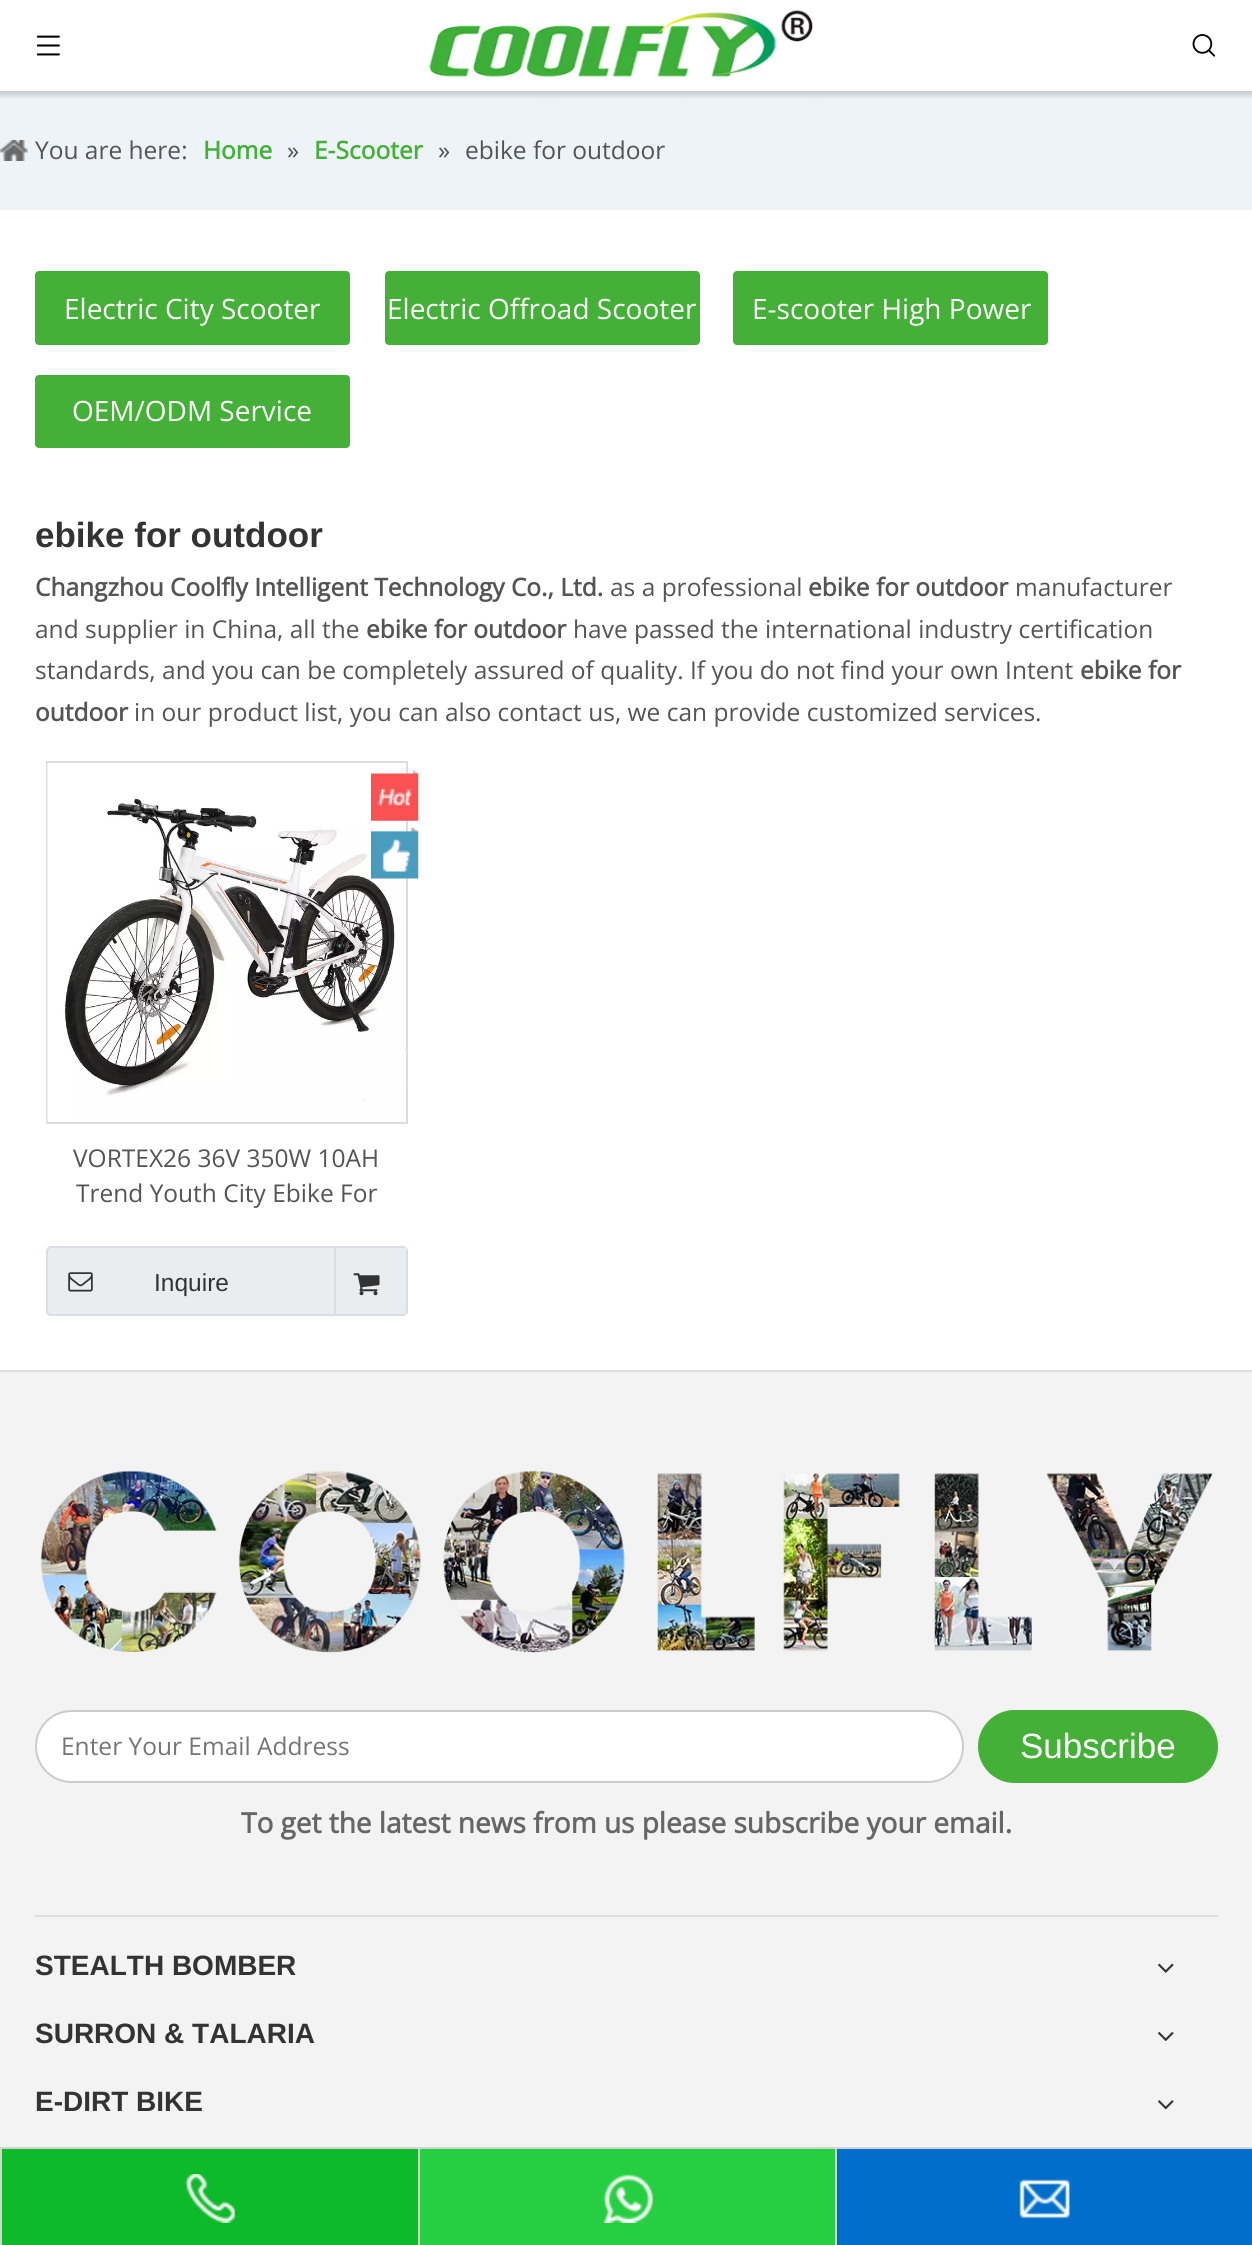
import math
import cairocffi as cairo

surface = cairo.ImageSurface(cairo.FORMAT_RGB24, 1252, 2245)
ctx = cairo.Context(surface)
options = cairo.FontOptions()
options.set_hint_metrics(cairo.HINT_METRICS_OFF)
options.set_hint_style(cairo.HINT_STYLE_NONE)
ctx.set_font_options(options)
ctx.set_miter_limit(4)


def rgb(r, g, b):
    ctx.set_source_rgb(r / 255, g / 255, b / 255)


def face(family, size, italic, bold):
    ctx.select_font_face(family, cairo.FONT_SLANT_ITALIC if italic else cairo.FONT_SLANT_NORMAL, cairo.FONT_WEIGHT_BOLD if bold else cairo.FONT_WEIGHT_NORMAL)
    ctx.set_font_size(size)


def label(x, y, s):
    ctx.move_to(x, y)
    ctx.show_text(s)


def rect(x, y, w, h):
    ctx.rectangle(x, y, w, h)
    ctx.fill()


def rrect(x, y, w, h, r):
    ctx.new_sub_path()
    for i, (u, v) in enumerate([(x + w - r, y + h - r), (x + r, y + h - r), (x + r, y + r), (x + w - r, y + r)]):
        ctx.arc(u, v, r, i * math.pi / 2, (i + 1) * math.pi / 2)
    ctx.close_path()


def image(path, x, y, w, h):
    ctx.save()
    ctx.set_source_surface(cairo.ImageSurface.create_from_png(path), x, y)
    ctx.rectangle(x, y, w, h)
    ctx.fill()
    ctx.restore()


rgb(255, 255, 255)
ctx.paint()
image('image0.png', 36, 35, 24, 21)
image('image1.png', 429, 10, 384, 67)
image('image2.png', 1192, 34, 24, 23)
rgb(238, 243, 247)
rect(0, 99, 1252, 111)
image('image3.png', 0, 91, 1252, 8)
image('image4.png', 0, 140, 28, 21)
face('Open Sans', 24.5, 0, 0)
rgb(84, 84, 84)
label(35, 159, 'You are here:')
face('Open Sans', 24.5, 0, 1)
rgb(68, 176, 56)
label(203, 159, 'Home')
face('Open Sans', 24.5, 0, 0)
rgb(84, 84, 84)
label(287, 159, '»')
face('Open Sans', 24.5, 0, 1)
rgb(68, 176, 56)
label(314, 159, 'E-Scooter')
face('Open Sans', 24.5, 0, 0)
rgb(84, 84, 84)
label(438, 159, '»')
label(465, 159, 'ebike for outdoor')
rgb(68, 176, 56)
rrect(35, 271, 315, 74, 4)
ctx.fill()
face('Open Sans', 28, 0, 0)
rgb(255, 255, 255)
label(64, 319, 'Electric City Scooter')
rgb(68, 176, 56)
rrect(385, 271, 315, 74, 4)
ctx.fill()
rgb(255, 255, 255)
label(387, 319, 'Electric Offroad Scooter')
rgb(68, 176, 56)
rrect(733, 271, 315, 74, 4)
ctx.fill()
rgb(255, 255, 255)
label(752, 319, 'E-scooter High Power')
rgb(68, 176, 56)
rrect(35, 375, 315, 73, 4)
ctx.fill()
rgb(255, 255, 255)
label(72, 421, 'OEM/ODM Service')
face('Liberation Sans', 35, 0, 1)
rgb(51, 51, 51)
label(35, 547, 'ebike for outdoor')
face('Open Sans', 24.5, 0, 1)
rgb(84, 84, 84)
label(35, 596, 'Changzhou Coolfly Intelligent Technology Co., Ltd.')
face('Open Sans', 24.5, 0, 0)
label(610, 596, 'as a professional')
face('Open Sans', 24.5, 0, 1)
label(808, 596, 'ebike for outdoor')
face('Open Sans', 24.5, 0, 0)
label(1015, 596, 'manufacturer')
label(35, 638, 'and supplier in China, all the')
face('Open Sans', 24.5, 0, 1)
label(366, 638, 'ebike for outdoor')
face('Open Sans', 24.5, 0, 0)
label(573, 638, 'have passed the international industry certification')
label(35, 679, 'standards, and you can be completely assured of quality. If you do not find your own Intent')
face('Open Sans', 24.5, 0, 1)
label(1080, 679, 'ebike for')
label(35, 721, 'outdoor')
face('Open Sans', 24.5, 0, 0)
label(134, 721, 'in our product list, you can also contact us, we can provide customized services.')
ctx.rectangle(47, 762, 360, 361)
rgb(221, 221, 221)
ctx.stroke()
image('image5.png', 47, 763, 359, 359)
image('image6.png', 371, 770, 48, 51)
image('image7.png', 371, 827, 48, 52)
rgb(84, 84, 84)
label(73, 1167, 'VORTEX26 36V 350W 10AH')
label(76, 1202, 'Trend Youth City Ebike For')
rgb(234, 237, 239)
rrect(47, 1247, 360, 68, 4)
ctx.fill_preserve()
rgb(216, 221, 230)
ctx.stroke()
image('image8.png', 68, 1272, 25, 20)
face('Liberation Sans', 24.5, 0, 0)
rgb(51, 51, 51)
label(154, 1291, 'Inquire')
rgb(234, 237, 239)
rect(404, 1248, 2, 66)
rgb(216, 221, 230)
rect(334, 1248, 2, 66)
image('image9.png', 353, 1273, 27, 23)
rgb(243, 243, 243)
rect(0, 1372, 1252, 775)
rgb(221, 221, 221)
rect(0, 1370, 1252, 2)
image('image10.png', 40, 1470, 1173, 183)
rgb(255, 255, 255)
rrect(36, 1711, 927, 71, 35.5)
ctx.fill_preserve()
rgb(204, 204, 204)
ctx.stroke()
face('Open Sans', 24.5, 0, 0)
rgb(117, 117, 117)
label(61, 1755, 'Enter Your Email Address')
rgb(68, 176, 56)
rrect(978, 1710, 240, 73, 36.5)
ctx.fill()
face('Liberation Sans', 35, 0, 0)
rgb(255, 255, 255)
label(1020, 1758, 'Subscribe')
face('Open Sans', 28, 0, 1)
rgb(102, 102, 102)
label(241, 1833, 'To get the latest news from us please subscribe your email.')
rgb(221, 221, 221)
rect(35, 1915, 1183, 2)
face('Liberation Sans', 28, 0, 1)
rgb(51, 51, 51)
label(35, 1975, 'STEALTH BOMBER')
image('image11.png', 1158, 1963, 16, 10)
label(35, 2043, 'SURRON & TALARIA')
image('image12.png', 1158, 2032, 16, 9)
label(35, 2111, 'E-DIRT BIKE')
image('image13.png', 1158, 2100, 16, 10)
rgb(211, 211, 211)
rect(0, 2147, 1252, 2)
rect(0, 2149, 2, 96)
rgb(13, 186, 42)
rect(2, 2149, 416, 96)
image('image14.png', 185, 2174, 50, 49)
rgb(211, 211, 211)
rect(418, 2149, 2, 96)
rgb(38, 207, 65)
rect(420, 2149, 415, 96)
image('image15.png', 603, 2174, 50, 49)
rgb(211, 211, 211)
rect(835, 2149, 2, 96)
rgb(1, 110, 203)
rect(837, 2149, 415, 96)
image('image16.png', 1019, 2179, 51, 40)
surface.write_to_png('render.png')
